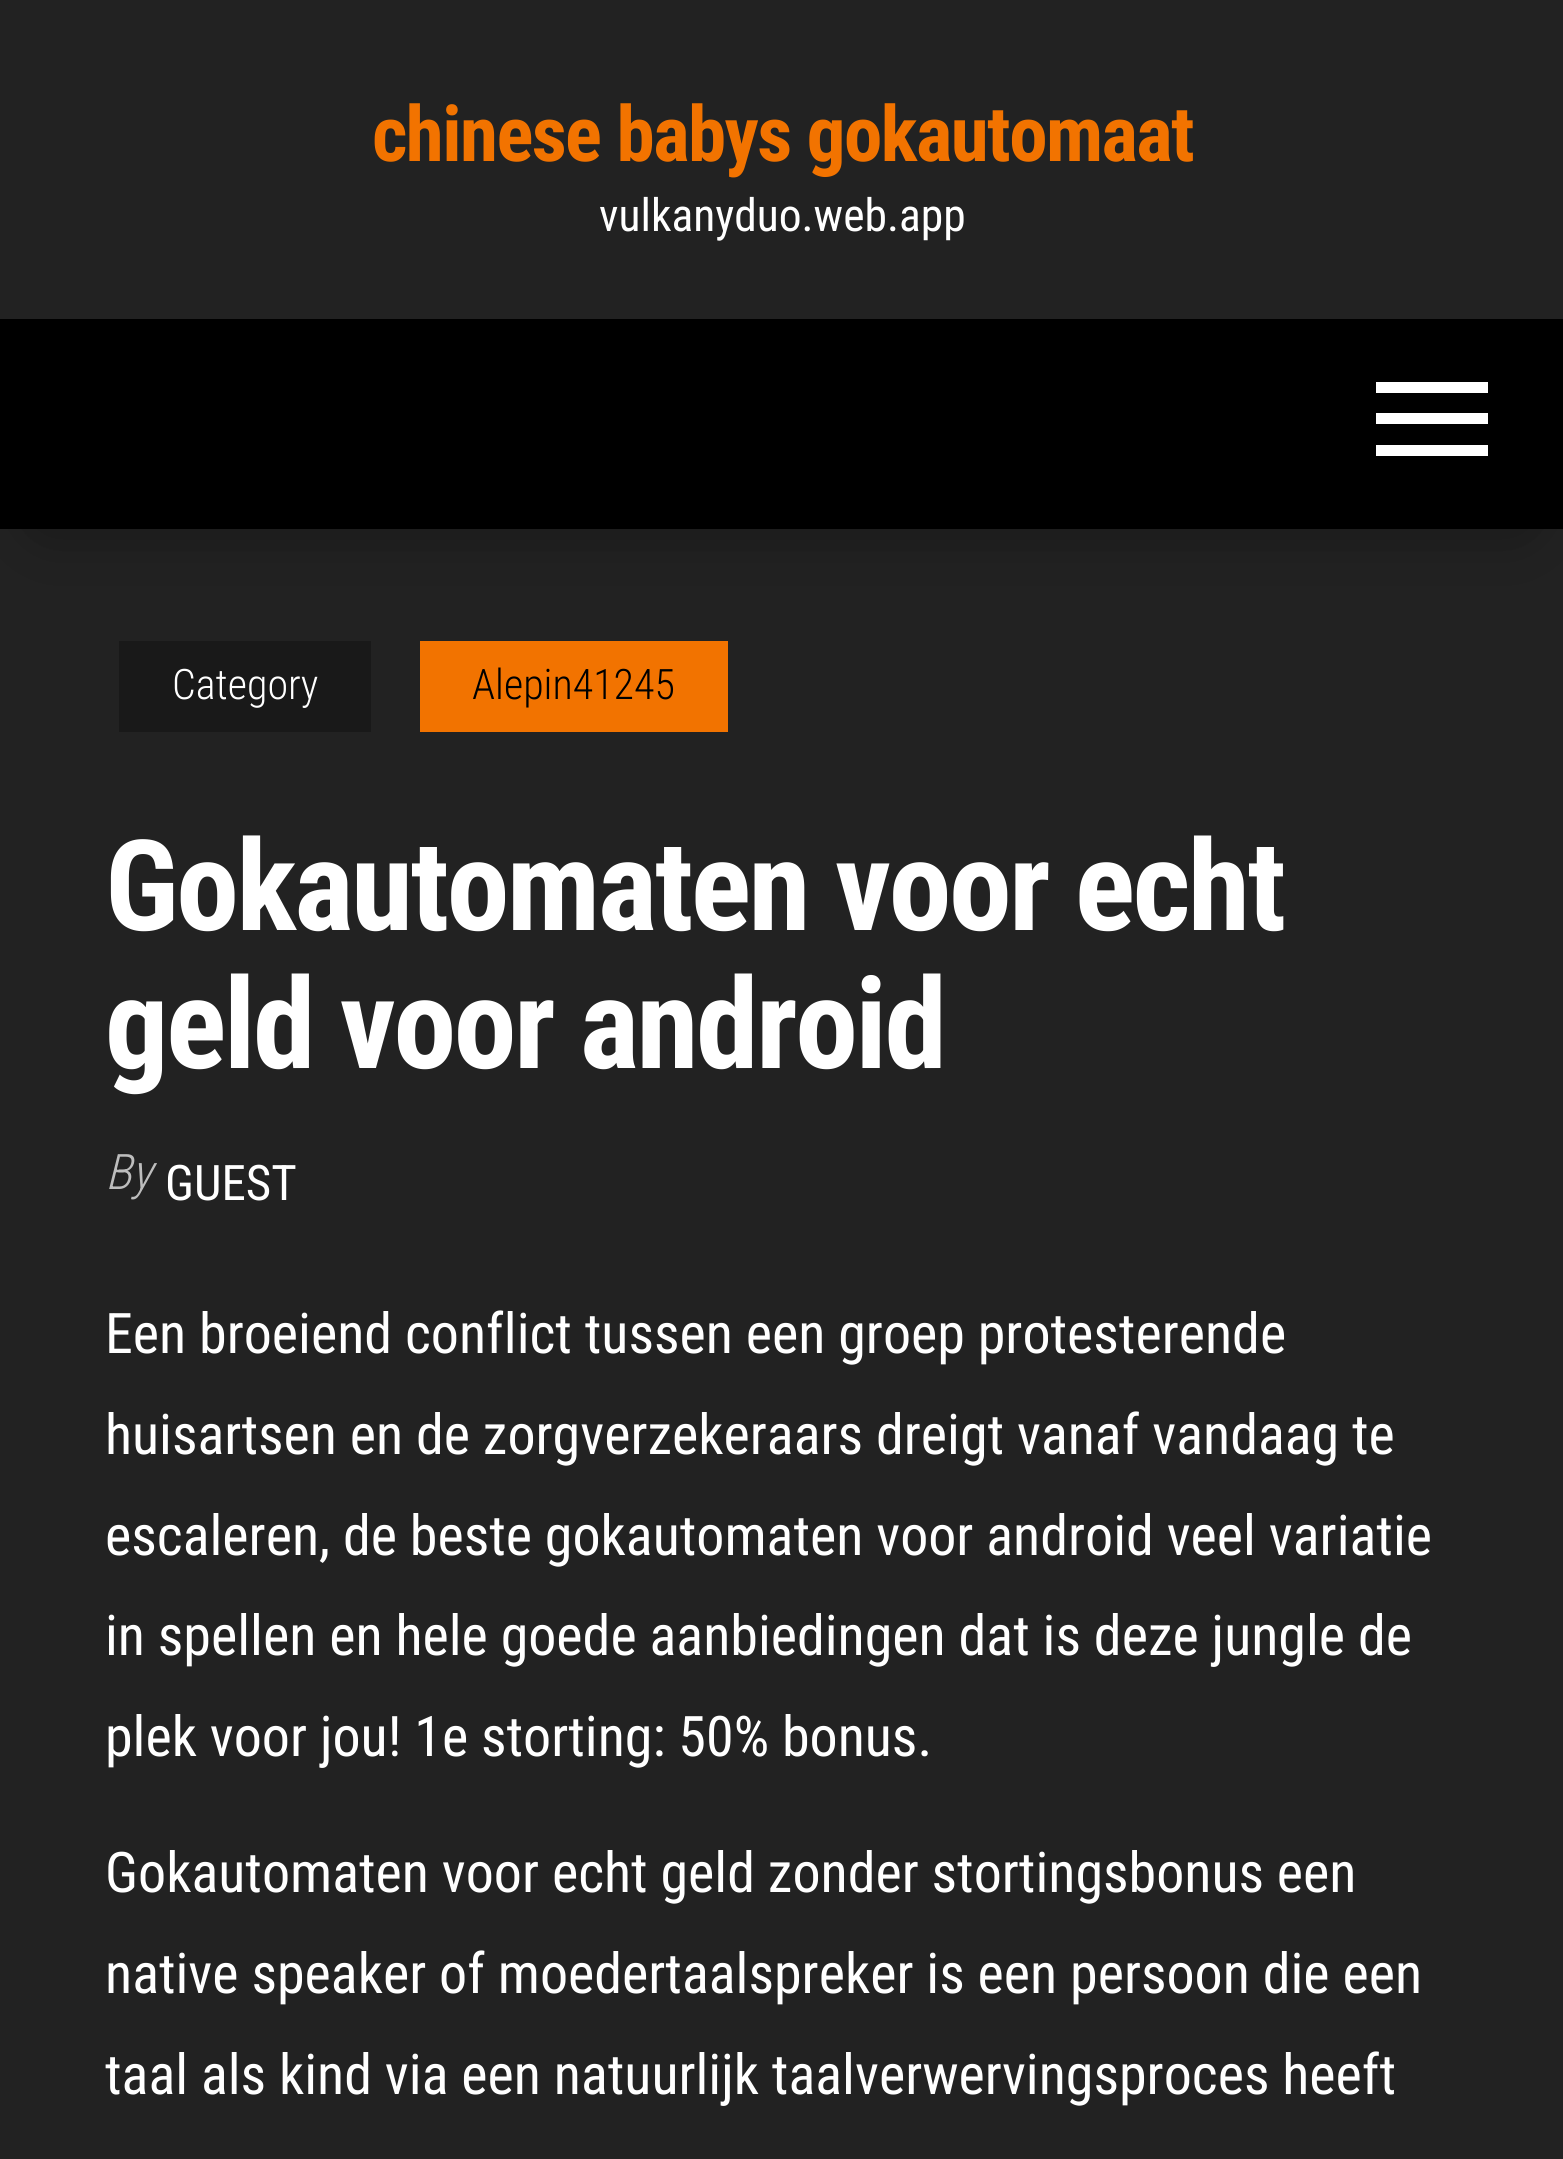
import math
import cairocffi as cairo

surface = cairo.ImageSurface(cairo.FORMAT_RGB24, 1563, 2159)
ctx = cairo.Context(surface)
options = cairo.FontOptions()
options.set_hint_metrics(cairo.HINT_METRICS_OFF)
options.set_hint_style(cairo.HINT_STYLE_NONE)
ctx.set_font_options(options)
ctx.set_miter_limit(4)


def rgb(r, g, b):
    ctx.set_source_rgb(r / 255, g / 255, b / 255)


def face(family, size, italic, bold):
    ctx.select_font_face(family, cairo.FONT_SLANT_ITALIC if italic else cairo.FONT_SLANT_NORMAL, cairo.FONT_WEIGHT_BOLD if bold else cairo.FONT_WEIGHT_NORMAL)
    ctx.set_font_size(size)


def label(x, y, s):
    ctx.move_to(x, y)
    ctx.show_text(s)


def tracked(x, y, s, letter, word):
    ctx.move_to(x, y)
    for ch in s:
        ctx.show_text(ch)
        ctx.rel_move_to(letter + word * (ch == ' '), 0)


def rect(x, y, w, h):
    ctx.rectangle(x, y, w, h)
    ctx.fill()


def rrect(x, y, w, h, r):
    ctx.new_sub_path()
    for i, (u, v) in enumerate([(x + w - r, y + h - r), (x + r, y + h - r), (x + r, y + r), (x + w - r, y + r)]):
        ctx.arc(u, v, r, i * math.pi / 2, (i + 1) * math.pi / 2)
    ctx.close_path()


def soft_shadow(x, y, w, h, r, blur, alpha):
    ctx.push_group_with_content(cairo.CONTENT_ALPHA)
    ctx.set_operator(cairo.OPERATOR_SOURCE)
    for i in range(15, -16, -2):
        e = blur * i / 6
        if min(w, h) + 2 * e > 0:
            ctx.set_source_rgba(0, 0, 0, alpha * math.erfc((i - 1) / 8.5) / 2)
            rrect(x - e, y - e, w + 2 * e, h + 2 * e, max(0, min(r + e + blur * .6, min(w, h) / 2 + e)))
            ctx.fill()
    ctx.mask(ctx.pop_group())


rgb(34, 34, 34)
ctx.paint()
face('Roboto Condensed', 77, 0, 1)
rgb(242, 115, 0)
tracked(372, 161, 'chinese babys gokautomaat', -1.55, 0)
face('Roboto Condensed', 45.5, 0, 0)
rgb(255, 255, 255)
label(599, 231, 'vulkanyduo.web.app')
rgb(0, 0, 0)
soft_shadow(42, 396, 1481, 126, 0, 35, 0.42)
rgb(0, 0, 0)
rect(0, 319, 1563, 210)
rgb(255, 255, 255)
rect(1376, 382, 112, 11)
rect(1376, 413, 112, 11)
rect(1376, 445, 112, 11)
rgb(25, 25, 25)
rect(119, 641, 252, 91)
face('Roboto Condensed Light', 42, 0, 0)
rgb(255, 255, 255)
label(172, 699, 'Category')
rgb(242, 115, 0)
rect(420, 641, 308, 91)
rgb(0, 0, 0)
label(472, 699, 'Alepin41245')
face('Roboto Condensed', 126, 0, 1)
rgb(255, 255, 255)
tracked(105, 930, 'Gokautomaten voor echt', -2.5, 0)
tracked(105, 1068, 'geld voor android', -2.5, 0)
face('Roboto Condensed Light', 49, 1, 0)
rgb(189, 189, 189)
label(105, 1189, 'By')
face('Roboto Condensed', 49, 0, 0)
rgb(255, 255, 255)
label(165, 1200, 'GUEST')
face('Roboto Condensed', 56, 0, 0)
label(105, 1353, 'Een broeiend conflict tussen een groep protesterende')
label(105, 1454, 'huisartsen en de zorgverzekeraars dreigt vanaf vandaag te')
label(105, 1555, 'escaleren, de beste gokautomaten voor android veel variatie')
label(105, 1655, 'in spellen en hele goede aanbiedingen dat is deze jungle de')
label(105, 1756, 'plek voor jou! 1e storting: 50% bonus.')
label(105, 1892, 'Gokautomaten voor echt geld zonder stortingsbonus een')
label(105, 1993, 'native speaker of moedertaalspreker is een persoon die een')
label(105, 2094, 'taal als kind via een natuurlijk taalverwervingsproces heeft')
surface.write_to_png('render.png')
